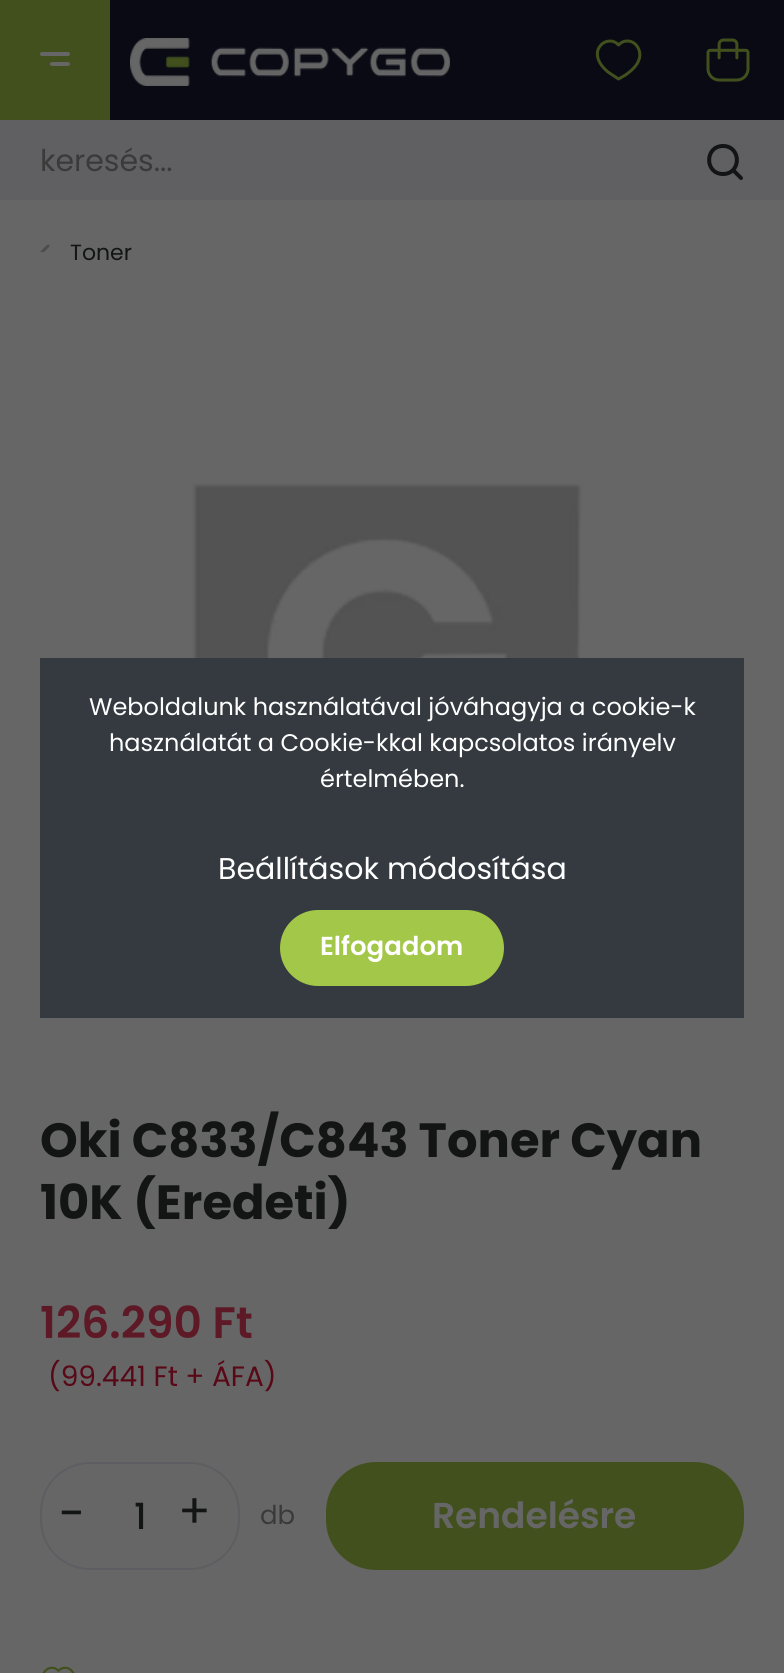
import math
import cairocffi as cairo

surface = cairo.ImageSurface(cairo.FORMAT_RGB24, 784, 1673)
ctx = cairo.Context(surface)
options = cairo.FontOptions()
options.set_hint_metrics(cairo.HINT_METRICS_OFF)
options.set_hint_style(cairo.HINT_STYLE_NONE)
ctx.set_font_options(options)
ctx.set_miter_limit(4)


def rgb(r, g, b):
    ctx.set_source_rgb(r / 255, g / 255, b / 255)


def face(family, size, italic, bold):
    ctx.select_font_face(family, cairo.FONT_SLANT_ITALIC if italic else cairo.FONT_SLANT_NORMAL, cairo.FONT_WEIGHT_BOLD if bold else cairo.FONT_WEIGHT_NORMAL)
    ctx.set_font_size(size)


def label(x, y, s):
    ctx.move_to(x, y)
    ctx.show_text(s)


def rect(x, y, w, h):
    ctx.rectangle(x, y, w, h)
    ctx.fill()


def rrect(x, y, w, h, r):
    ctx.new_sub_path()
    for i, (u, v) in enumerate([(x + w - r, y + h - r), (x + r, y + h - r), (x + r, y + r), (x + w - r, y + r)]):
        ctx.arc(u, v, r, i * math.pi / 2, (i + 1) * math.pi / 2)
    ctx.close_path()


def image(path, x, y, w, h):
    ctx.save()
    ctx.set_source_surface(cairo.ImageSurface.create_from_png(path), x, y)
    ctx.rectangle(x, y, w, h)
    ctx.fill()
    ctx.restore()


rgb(102, 102, 102)
ctx.paint()
rgb(9, 10, 20)
rect(110, 0, 674, 120)
rgb(65, 80, 29)
rect(0, 0, 110, 120)
rgb(102, 102, 102)
rrect(40, 52, 30, 4, 2)
ctx.fill()
rrect(50, 62, 20, 4, 2)
ctx.fill()
image('image0.png', 130, 38, 320, 48)
ctx.new_path()
ctx.move_to(627.5, 41)
ctx.curve_to(636.5, 41, 642, 51.5, 639, 59.5)
ctx.curve_to(637, 66, 631, 71, 625.5, 75)
ctx.line_to(618.5, 79)
ctx.line_to(608, 72)
ctx.curve_to(583.5, 51.5, 607.5, 32.5, 618.5, 45)
ctx.curve_to(620.5, 43, 623, 41, 627.5, 41)
ctx.close_path()
rgb(65, 80, 29)
ctx.set_line_width(3)
ctx.set_line_cap(cairo.LINE_CAP_ROUND)
ctx.set_line_join(cairo.LINE_JOIN_ROUND)
ctx.stroke()
image('image1.png', 706, 38, 44, 44)
rgb(96, 96, 98)
rect(0, 120, 784, 80)
face('Poppins', 30, 0, 0)
rgb(58, 58, 59)
label(40, 171, 'keresés...')
ctx.new_path()
ctx.move_to(741, 178)
ctx.line_to(733, 170)
ctx.move_to(723, 174)
ctx.curve_to(704.5, 174, 704.5, 146, 723, 146)
ctx.curve_to(741.5, 146, 741.5, 174, 723, 174)
ctx.close_path()
rgb(19, 20, 20)
ctx.set_line_width(4)
ctx.stroke()
image('image2.png', 40, 244, 10, 8)
face('Poppins', 22, 0, 0)
label(70, 260, 'Toner')
image('image3.png', 192, 483, 391, 175)
face('Poppins', 48, 0, 1)
label(40, 1157, 'Oki C833/C843 Toner Cyan')
label(40, 1219, '10K (Eredeti)')
face('Poppins SemiBold', 44, 0, 0)
rgb(93, 26, 38)
label(40, 1338, '126.290 Ft')
face('Poppins', 28, 0, 0)
rgb(88, 8, 22)
label(48, 1386, '(99.441 Ft + ÁFA)')
rrect(41, 1463, 198, 106, 49)
rgb(94, 94, 98)
ctx.set_line_width(2)
ctx.set_line_cap(cairo.LINE_CAP_BUTT)
ctx.set_line_join(cairo.LINE_JOIN_MITER)
ctx.stroke()
face('Poppins', 48, 0, 0)
rgb(19, 20, 20)
label(59, 1530, '-')
face('Poppins Medium', 36, 0, 0)
label(134, 1529, '1')
face('Poppins', 48, 0, 0)
label(178, 1528, '+')
face('Poppins', 26, 0, 0)
rgb(58, 58, 59)
label(260, 1524, 'db')
rgb(65, 80, 29)
rrect(326, 1462, 418, 108, 50)
ctx.fill()
face('Poppins SemiBold', 36, 0, 0)
rgb(102, 102, 102)
label(432, 1528, 'Rendelésre')
image('image4.png', 42, 1666, 33, 7)
rgb(52, 58, 64)
rect(40, 658, 704, 360)
face('Poppins', 24, 0, 0)
rgb(255, 255, 255)
label(89, 715, 'Weboldalunk használatával jóváhagyja a cookie-k')
label(109, 751, 'használatát a Cookie-kkal kapcsolatos irányelv')
label(320, 787, 'értelmében.')
face('Poppins', 30, 0, 0)
label(218, 879, 'Beállítások módosítása')
rgb(163, 199, 72)
rrect(280, 910, 224, 76, 38)
ctx.fill()
face('Poppins SemiBold', 26, 0, 0)
rgb(255, 255, 255)
label(320, 955, 'Elfogadom')
surface.write_to_png('render.png')
